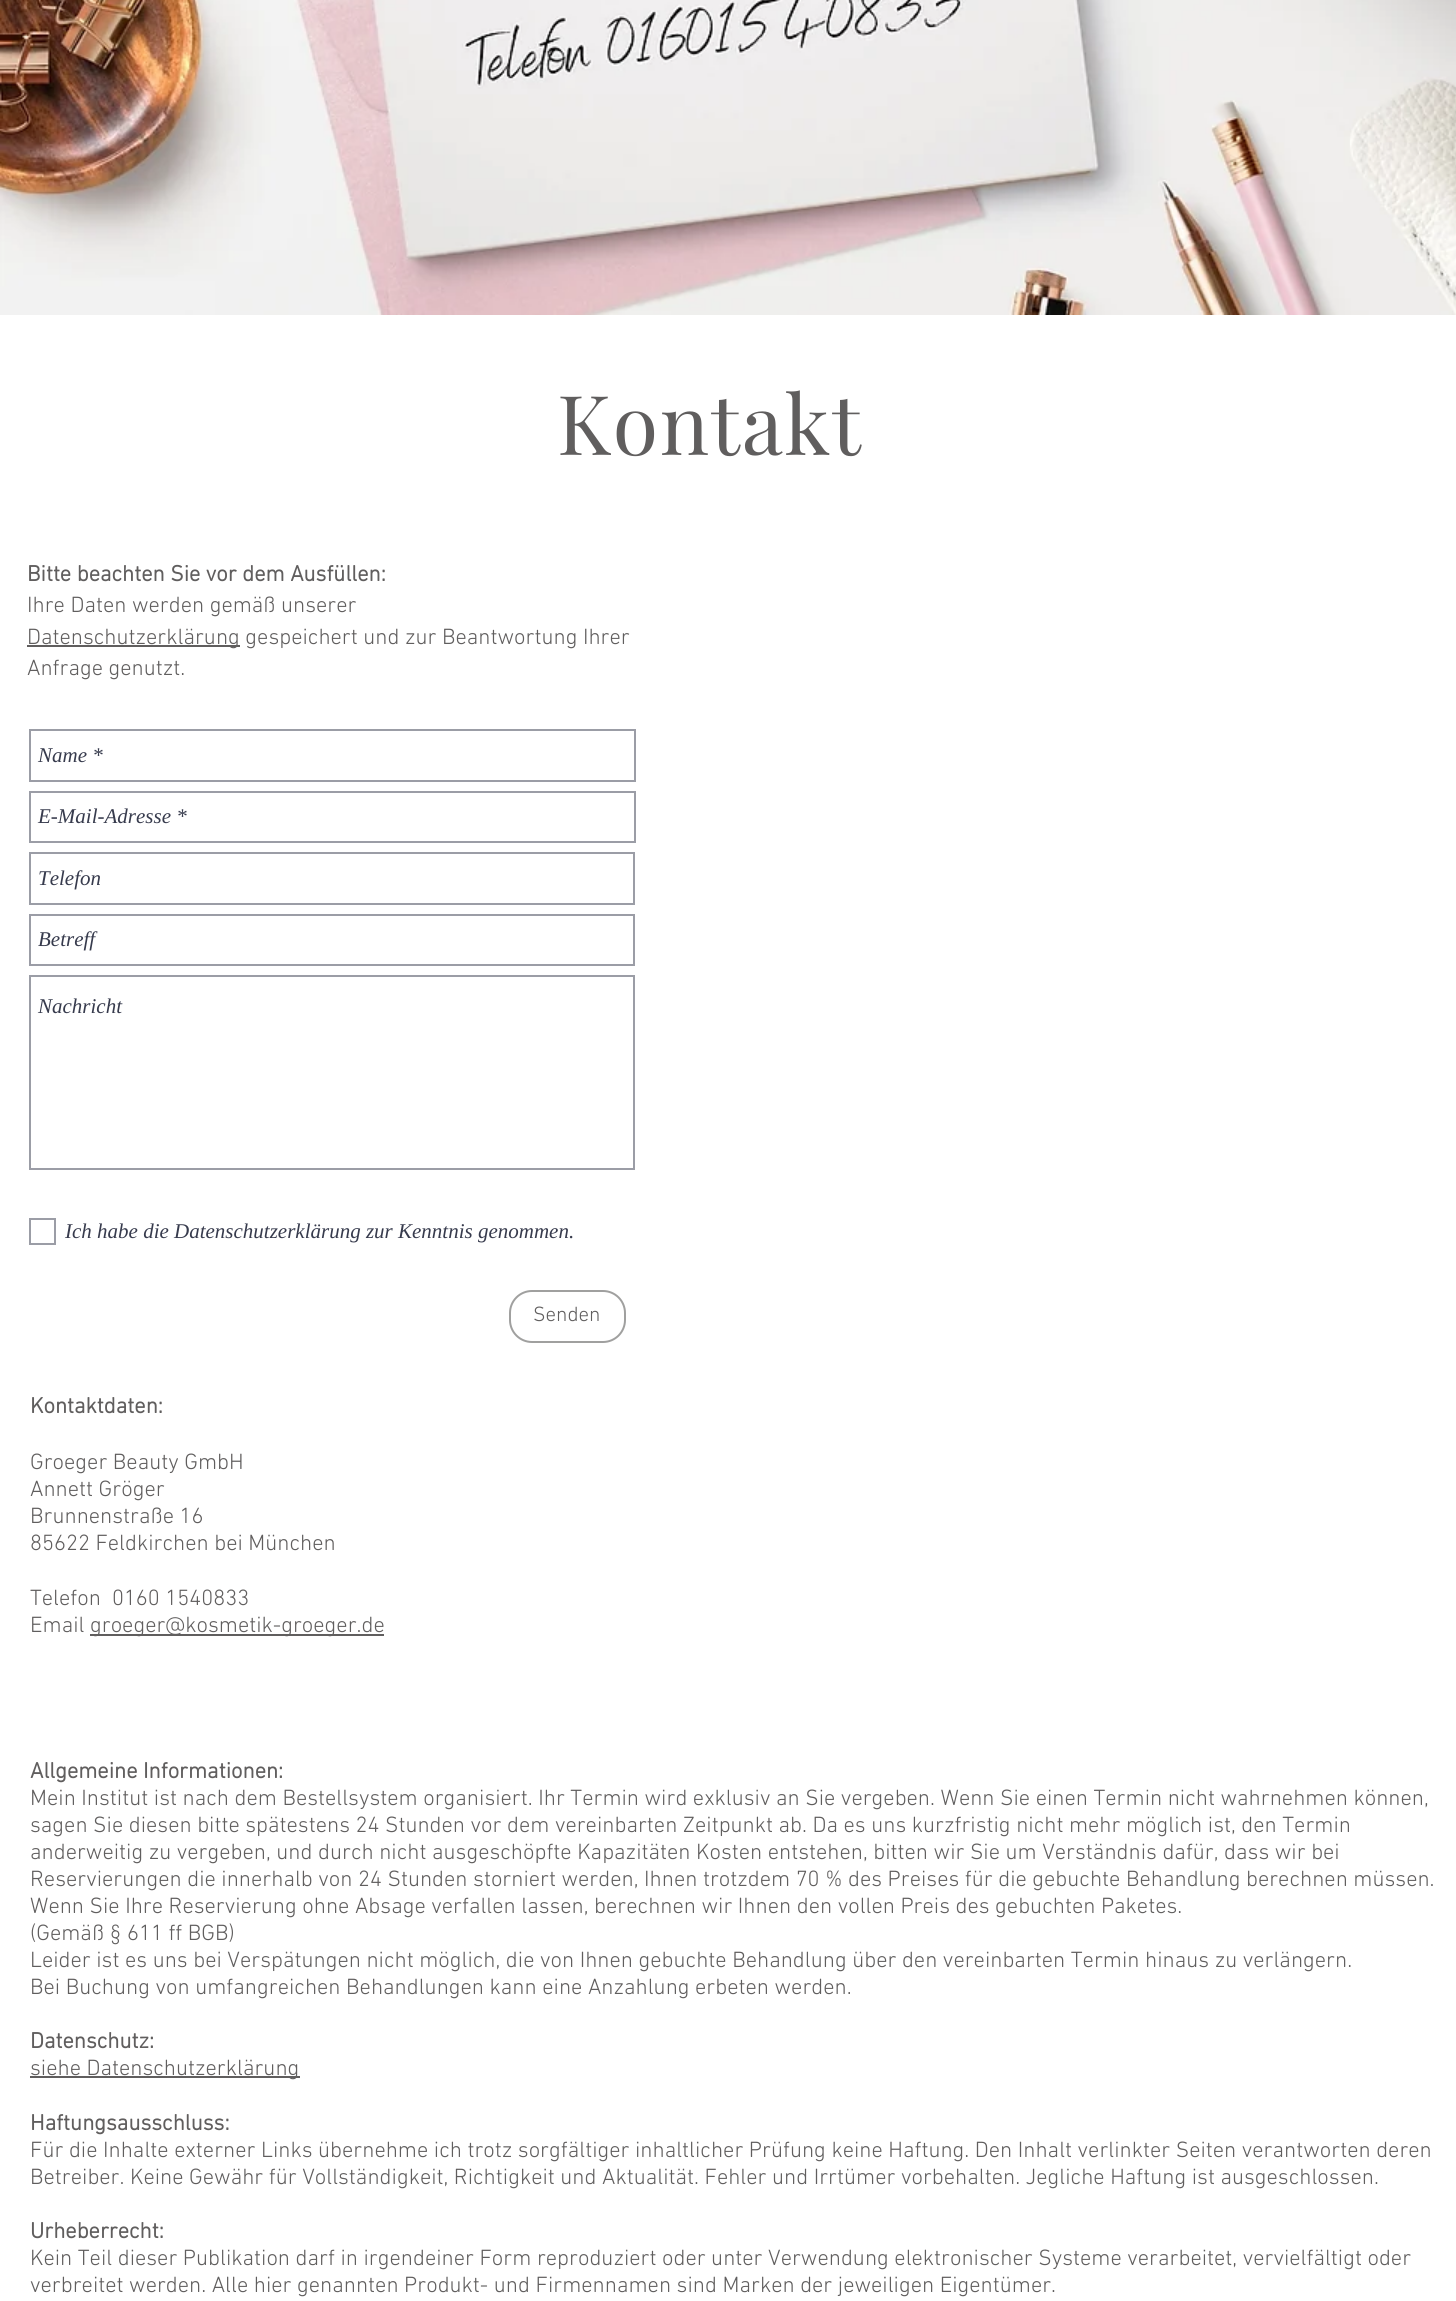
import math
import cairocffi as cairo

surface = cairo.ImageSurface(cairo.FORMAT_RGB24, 1456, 2301)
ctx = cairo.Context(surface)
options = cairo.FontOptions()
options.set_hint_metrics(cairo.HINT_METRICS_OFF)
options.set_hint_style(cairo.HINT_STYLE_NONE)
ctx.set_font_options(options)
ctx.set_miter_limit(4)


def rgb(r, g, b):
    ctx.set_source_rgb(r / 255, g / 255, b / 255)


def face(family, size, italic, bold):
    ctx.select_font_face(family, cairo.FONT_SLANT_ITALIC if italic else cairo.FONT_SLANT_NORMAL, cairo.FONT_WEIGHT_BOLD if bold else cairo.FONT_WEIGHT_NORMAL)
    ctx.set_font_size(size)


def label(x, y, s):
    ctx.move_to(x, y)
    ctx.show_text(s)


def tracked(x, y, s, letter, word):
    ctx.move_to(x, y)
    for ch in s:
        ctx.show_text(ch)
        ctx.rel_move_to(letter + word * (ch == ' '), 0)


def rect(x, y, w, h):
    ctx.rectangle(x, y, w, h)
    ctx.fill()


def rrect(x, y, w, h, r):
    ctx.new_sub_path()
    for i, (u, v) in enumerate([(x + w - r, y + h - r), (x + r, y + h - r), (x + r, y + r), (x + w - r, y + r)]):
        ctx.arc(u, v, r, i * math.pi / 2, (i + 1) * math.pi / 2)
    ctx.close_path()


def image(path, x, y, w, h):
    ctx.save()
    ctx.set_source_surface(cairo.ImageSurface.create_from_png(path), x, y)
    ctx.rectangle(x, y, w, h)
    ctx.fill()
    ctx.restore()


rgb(255, 255, 255)
ctx.paint()
image('image0.png', 0, 0, 1456, 315)
face('Playfair Display', 82.5, 0, 0)
rgb(96, 94, 94)
tracked(557, 455, 'Kontakt', 1.75, 0)
face('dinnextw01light', 22.5, 0, 1)
label(27, 581, 'Bitte beachten Sie vor dem Ausfüllen:')
face('dinnextw01light Light', 22.5, 0, 0)
label(27, 612, 'Ihre Daten werden gemäß unserer')
rect(27, 645, 213, 2)
label(27, 644, 'Datenschutzerklärung gespeichert und zur Beantwortung Ihrer')
label(27, 675, 'Anfrage genutzt.')
ctx.rectangle(30, 730, 605, 51)
rgb(155, 157, 166)
ctx.stroke()
face('Liberation Serif', 21, 1, 0)
rgb(55, 59, 77)
label(38, 762, 'Name *')
ctx.rectangle(30, 792, 605, 50)
rgb(155, 157, 166)
ctx.stroke()
rgb(55, 59, 77)
label(38, 823, 'E-Mail-Adresse *')
ctx.rectangle(30, 853, 604, 51)
rgb(155, 157, 166)
ctx.stroke()
rgb(55, 59, 77)
label(38, 885, 'Telefon')
ctx.rectangle(30, 915, 604, 50)
rgb(155, 157, 166)
ctx.stroke()
rgb(55, 59, 77)
label(38, 946, 'Betreff')
ctx.rectangle(30, 976, 604, 193)
rgb(155, 157, 166)
ctx.stroke()
rgb(55, 59, 77)
label(38, 1013, 'Nachricht')
ctx.rectangle(30, 1219, 25, 25)
rgb(155, 157, 166)
ctx.stroke()
rgb(55, 59, 77)
label(65, 1238, 'Ich habe die Datenschutzerklärung zur Kenntnis genommen.')
rrect(510, 1291, 115, 51, 22)
rgb(160, 160, 159)
ctx.stroke()
face('dinnextw01light Light', 21, 0, 0)
rgb(96, 94, 94)
label(533, 1321, 'Senden')
face('dinnextw01light', 22.5, 0, 1)
label(30, 1413, 'Kontaktdaten:')
face('dinnextw01light Light', 22.5, 0, 0)
label(30, 1469, 'Groeger Beauty GmbH')
label(30, 1496, 'Annett Gröger')
label(30, 1523, 'Brunnenstraße 16')
label(30, 1550, '85622 Feldkirchen bei München')
label(30, 1605, 'Telefon  0160 1540833')
label(30, 1632, 'Email')
rect(90, 1634, 294, 2)
label(90, 1632, 'groeger@kosmetik-groeger.de')
face('dinnextw01light', 22.5, 0, 1)
label(30, 1778, 'Allgemeine Informationen:')
face('dinnextw01light Light', 22.5, 0, 0)
label(30, 1805, 'Mein Institut ist nach dem Bestellsystem organisiert. Ihr Termin wird exklusiv an Sie vergeben. Wenn Sie einen Termin nicht wahrnehmen können,')
label(30, 1832, 'sagen Sie diesen bitte spätestens 24 Stunden vor dem vereinbarten Zeitpunkt ab. Da es uns kurzfristig nicht mehr möglich ist, den Termin')
label(30, 1859, 'anderweitig zu vergeben, und durch nicht ausgeschöpfte Kapazitäten Kosten entstehen, bitten wir Sie um Verständnis dafür, dass wir bei')
label(30, 1886, 'Reservierungen die innerhalb von 24 Stunden storniert werden, Ihnen trotzdem 70 % des Preises für die gebuchte Behandlung berechnen müssen.')
label(30, 1913, 'Wenn Sie Ihre Reservierung ohne Absage verfallen lassen, berechnen wir Ihnen den vollen Preis des gebuchten Paketes.')
label(30, 1940, '(Gemäß § 611 ff BGB)')
label(30, 1967, 'Leider ist es uns bei Verspätungen nicht möglich, die von Ihnen gebuchte Behandlung über den vereinbarten Termin hinaus zu verlängern.')
label(30, 1994, 'Bei Buchung von umfangreichen Behandlungen kann eine Anzahlung erbeten werden.')
face('dinnextw01light', 22.5, 0, 1)
label(30, 2048, 'Datenschutz:')
rect(30, 2076, 270, 2)
face('dinnextw01light Light', 22.5, 0, 0)
label(30, 2075, 'siehe Datenschutzerklärung')
face('dinnextw01light', 22.5, 0, 1)
label(30, 2130, 'Haftungsausschluss:')
face('dinnextw01light Light', 22.5, 0, 0)
label(30, 2157, 'Für die Inhalte externer Links übernehme ich trotz sorgfältiger inhaltlicher Prüfung keine Haftung. Den Inhalt verlinkter Seiten verantworten deren')
label(30, 2184, 'Betreiber. Keine Gewähr für Vollständigkeit, Richtigkeit und Aktualität. Fehler und Irrtümer vorbehalten. Jegliche Haftung ist ausgeschlossen.')
face('dinnextw01light', 22.5, 0, 1)
label(30, 2238, 'Urheberrecht:')
face('dinnextw01light Light', 22.5, 0, 0)
label(30, 2265, 'Kein Teil dieser Publikation darf in irgendeiner Form reproduziert oder unter Verwendung elektronischer Systeme verarbeitet, vervielfältigt oder')
label(30, 2292, 'verbreitet werden. Alle hier genannten Produkt- und Firmennamen sind Marken der jeweiligen Eigentümer.')
surface.write_to_png('render.png')
